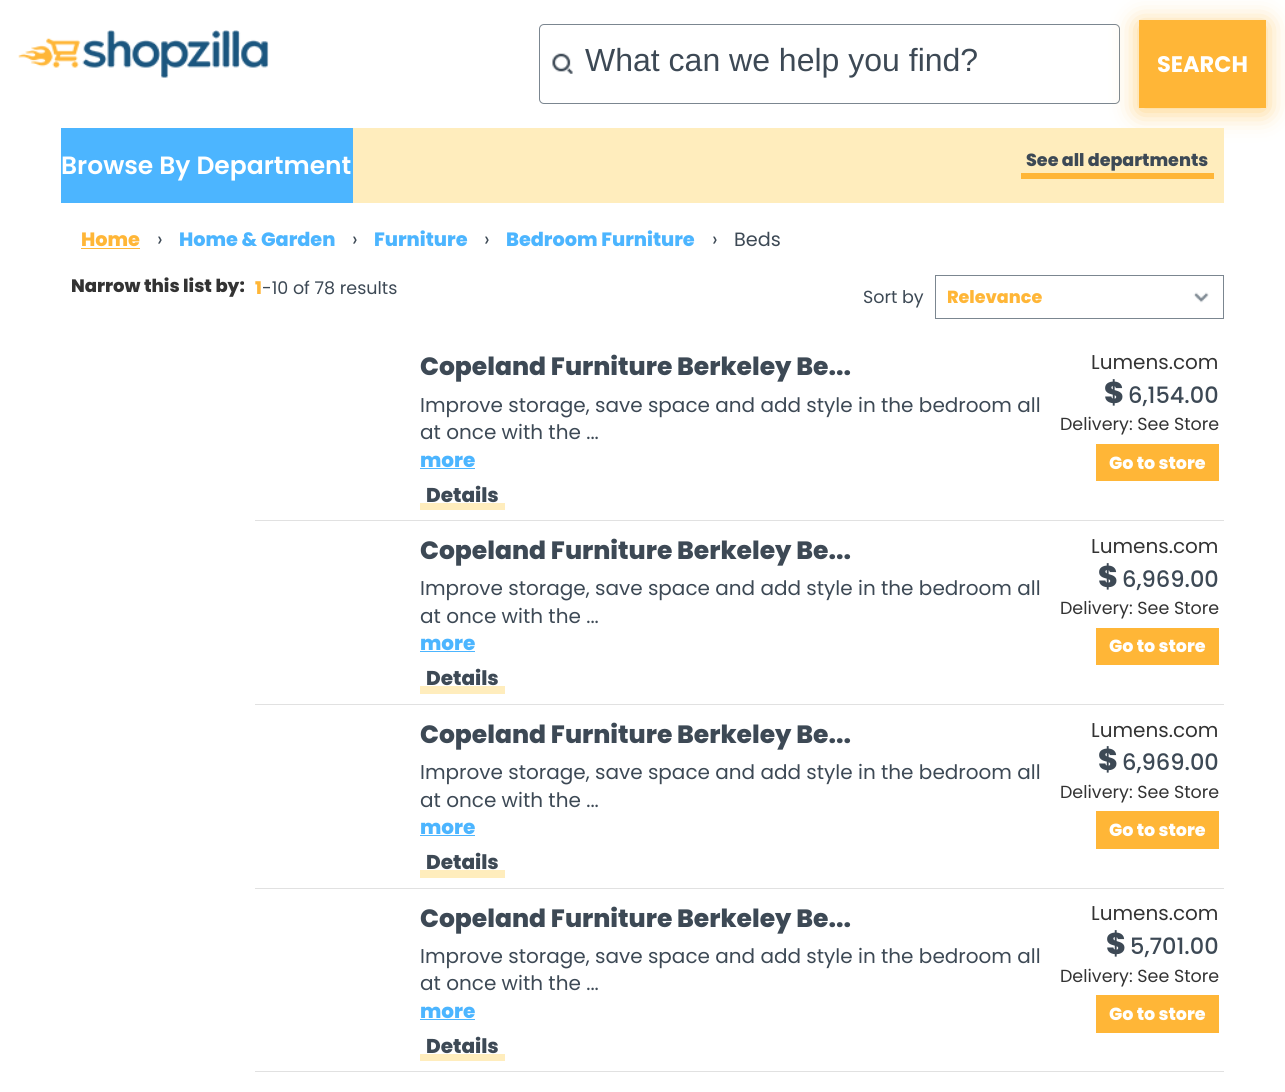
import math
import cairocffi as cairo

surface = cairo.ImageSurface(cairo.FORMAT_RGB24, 1285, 1092)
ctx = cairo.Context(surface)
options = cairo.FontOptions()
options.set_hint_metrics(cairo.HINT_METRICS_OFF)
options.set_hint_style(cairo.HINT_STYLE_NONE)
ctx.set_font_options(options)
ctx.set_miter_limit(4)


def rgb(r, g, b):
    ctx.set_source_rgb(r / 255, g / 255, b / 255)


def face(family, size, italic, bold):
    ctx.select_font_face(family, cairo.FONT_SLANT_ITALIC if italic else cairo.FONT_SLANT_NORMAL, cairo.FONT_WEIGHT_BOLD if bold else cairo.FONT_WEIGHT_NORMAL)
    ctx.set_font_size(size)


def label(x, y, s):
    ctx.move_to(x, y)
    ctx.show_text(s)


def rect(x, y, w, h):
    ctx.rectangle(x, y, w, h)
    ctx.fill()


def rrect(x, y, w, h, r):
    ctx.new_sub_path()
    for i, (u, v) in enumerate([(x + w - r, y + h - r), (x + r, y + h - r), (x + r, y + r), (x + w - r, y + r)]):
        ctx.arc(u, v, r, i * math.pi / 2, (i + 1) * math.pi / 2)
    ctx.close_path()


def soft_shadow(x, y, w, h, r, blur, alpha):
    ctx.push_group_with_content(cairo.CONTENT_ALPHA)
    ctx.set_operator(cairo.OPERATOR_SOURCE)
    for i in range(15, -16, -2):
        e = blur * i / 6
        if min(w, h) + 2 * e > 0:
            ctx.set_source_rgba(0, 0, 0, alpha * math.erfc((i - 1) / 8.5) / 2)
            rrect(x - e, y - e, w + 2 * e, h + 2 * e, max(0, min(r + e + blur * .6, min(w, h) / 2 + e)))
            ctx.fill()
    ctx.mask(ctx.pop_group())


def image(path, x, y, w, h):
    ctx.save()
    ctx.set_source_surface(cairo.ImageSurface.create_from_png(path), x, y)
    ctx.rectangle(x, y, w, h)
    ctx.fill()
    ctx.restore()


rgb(255, 255, 255)
ctx.paint()
image('image0.png', 18, 30, 251, 48)
image('image1.png', 552, 53, 21, 21)
rrect(539.5, 24.5, 580, 79, 4.5)
rgb(123, 134, 144)
ctx.set_line_width(1)
ctx.stroke()
face('Liberation Sans', 32, 0, 0)
rgb(61, 73, 85)
label(585, 71, 'What can we help you find?')
rgb(255, 207, 119)
soft_shadow(1139, 24, 127, 87, 0, 12.5, 1)
rgb(255, 182, 55)
rect(1139, 20, 127, 88)
face('Poppins', 22.5, 0, 1)
rgb(255, 255, 255)
label(1157, 72, 'SEARCH')
rgb(76, 181, 255)
rect(61, 128, 292, 75)
face('Poppins SemiBold', 25, 0, 0)
rgb(255, 255, 255)
label(61, 174, 'Browse By Department')
rgb(255, 237, 189)
rect(353, 128, 871, 75)
face('Poppins ExtraBold', 17.5, 0, 0)
rgb(61, 73, 85)
label(1026, 166, 'See all departments')
rgb(255, 182, 55)
rect(1021, 173, 193, 6)
face('Poppins ExtraBold', 19.25, 0, 0)
label(81, 246, 'Home')
rect(81, 248, 59, 1)
face('Poppins', 20, 0, 0)
rgb(61, 73, 85)
label(157, 246, '›')
face('Poppins ExtraBold', 19.25, 0, 0)
rgb(76, 181, 255)
label(179, 246, 'Home & Garden')
face('Poppins', 20, 0, 0)
rgb(61, 73, 85)
label(352, 246, '›')
face('Poppins ExtraBold', 19.25, 0, 0)
rgb(76, 181, 255)
label(374, 246, 'Furniture')
face('Poppins', 20, 0, 0)
rgb(61, 73, 85)
label(484, 246, '›')
face('Poppins ExtraBold', 19.25, 0, 0)
rgb(76, 181, 255)
label(506, 246, 'Bedroom Furniture')
face('Poppins', 20, 0, 0)
rgb(61, 73, 85)
label(712, 246, '›')
face('Poppins', 19.25, 0, 0)
label(734, 246, 'Beds')
face('Poppins ExtraBold', 18, 0, 0)
rgb(51, 51, 51)
label(71, 292, 'Narrow this list by:')
face('Poppins ExtraBold', 17.5, 0, 0)
rgb(255, 182, 55)
label(255, 294, '1')
face('Poppins', 17.5, 0, 0)
rgb(61, 73, 85)
label(262, 294, '-10 of 78 results')
label(863, 303, 'Sort by')
image('image2.png', 1193, 292, 16, 11)
ctx.rectangle(935.5, 275.5, 288, 43)
rgb(123, 134, 144)
ctx.stroke()
face('Poppins ExtraBold', 17.5, 0, 0)
rgb(255, 182, 55)
label(947, 303, 'Relevance')
rgb(225, 225, 225)
rect(255, 520, 969, 1)
face('Poppins ExtraBold', 25, 0, 0)
rgb(61, 73, 85)
label(420, 375, 'Copeland Furniture Berkeley Be...')
face('Poppins', 20, 0, 0)
label(420, 412, 'Improve storage, save space and add style in the bedroom all')
label(420, 439, 'at once with the ...')
face('Poppins ExtraBold', 20, 0, 0)
rgb(76, 181, 255)
label(420, 467, 'more')
rect(420, 468, 55, 1)
rgb(255, 237, 189)
rect(420, 503, 85, 7)
rgb(61, 73, 85)
label(426, 502, 'Details')
face('Poppins', 20, 0, 0)
rgb(51, 51, 51)
label(1091, 369, 'Lumens.com')
face('Poppins ExtraBold', 30, 0, 0)
rgb(61, 73, 85)
label(1104, 403, '$')
face('Poppins Medium', 22.5, 0, 0)
label(1128, 403, '6,154.00')
face('Poppins', 17.5, 0, 0)
rgb(51, 51, 51)
label(1060, 430, 'Delivery: See Store')
rgb(255, 182, 55)
rect(1096, 444, 123, 37)
face('Poppins ExtraBold', 17.5, 0, 0)
rgb(255, 255, 255)
label(1109, 469, 'Go to store')
rgb(225, 225, 225)
rect(255, 704, 969, 1)
face('Poppins ExtraBold', 25, 0, 0)
rgb(61, 73, 85)
label(420, 559, 'Copeland Furniture Berkeley Be...')
face('Poppins', 20, 0, 0)
label(420, 595, 'Improve storage, save space and add style in the bedroom all')
label(420, 623, 'at once with the ...')
face('Poppins ExtraBold', 20, 0, 0)
rgb(76, 181, 255)
label(420, 650, 'more')
rect(420, 651, 55, 1)
rgb(255, 237, 189)
rect(420, 686, 85, 8)
rgb(61, 73, 85)
label(426, 685, 'Details')
face('Poppins', 20, 0, 0)
rgb(51, 51, 51)
label(1091, 553, 'Lumens.com')
face('Poppins ExtraBold', 30, 0, 0)
rgb(61, 73, 85)
label(1098, 587, '$')
face('Poppins Medium', 22.5, 0, 0)
label(1122, 587, '6,969.00')
face('Poppins', 17.5, 0, 0)
rgb(51, 51, 51)
label(1060, 614, 'Delivery: See Store')
rgb(255, 182, 55)
rect(1096, 628, 123, 37)
face('Poppins ExtraBold', 17.5, 0, 0)
rgb(255, 255, 255)
label(1109, 652, 'Go to store')
rgb(225, 225, 225)
rect(255, 888, 969, 1)
face('Poppins ExtraBold', 25, 0, 0)
rgb(61, 73, 85)
label(420, 743, 'Copeland Furniture Berkeley Be...')
face('Poppins', 20, 0, 0)
label(420, 779, 'Improve storage, save space and add style in the bedroom all')
label(420, 807, 'at once with the ...')
face('Poppins ExtraBold', 20, 0, 0)
rgb(76, 181, 255)
label(420, 834, 'more')
rect(420, 835, 55, 1)
rgb(255, 237, 189)
rect(420, 870, 85, 8)
rgb(61, 73, 85)
label(426, 869, 'Details')
face('Poppins', 20, 0, 0)
rgb(51, 51, 51)
label(1091, 737, 'Lumens.com')
face('Poppins ExtraBold', 30, 0, 0)
rgb(61, 73, 85)
label(1098, 770, '$')
face('Poppins Medium', 22.5, 0, 0)
label(1122, 770, '6,969.00')
face('Poppins', 17.5, 0, 0)
rgb(51, 51, 51)
label(1060, 798, 'Delivery: See Store')
rgb(255, 182, 55)
rect(1096, 811, 123, 38)
face('Poppins ExtraBold', 17.5, 0, 0)
rgb(255, 255, 255)
label(1109, 836, 'Go to store')
rgb(225, 225, 225)
rect(255, 1071, 969, 1)
face('Poppins ExtraBold', 25, 0, 0)
rgb(61, 73, 85)
label(420, 927, 'Copeland Furniture Berkeley Be...')
face('Poppins', 20, 0, 0)
label(420, 963, 'Improve storage, save space and add style in the bedroom all')
label(420, 990, 'at once with the ...')
face('Poppins ExtraBold', 20, 0, 0)
rgb(76, 181, 255)
label(420, 1018, 'more')
rect(420, 1019, 55, 1)
rgb(255, 237, 189)
rect(420, 1054, 85, 7)
rgb(61, 73, 85)
label(426, 1053, 'Details')
face('Poppins', 20, 0, 0)
rgb(51, 51, 51)
label(1091, 920, 'Lumens.com')
face('Poppins ExtraBold', 30, 0, 0)
rgb(61, 73, 85)
label(1106, 954, '$')
face('Poppins Medium', 22.5, 0, 0)
label(1130, 954, '5,701.00')
face('Poppins', 17.5, 0, 0)
rgb(51, 51, 51)
label(1060, 982, 'Delivery: See Store')
rgb(255, 182, 55)
rect(1096, 995, 123, 38)
face('Poppins ExtraBold', 17.5, 0, 0)
rgb(255, 255, 255)
label(1109, 1020, 'Go to store')
surface.write_to_png('render.png')
